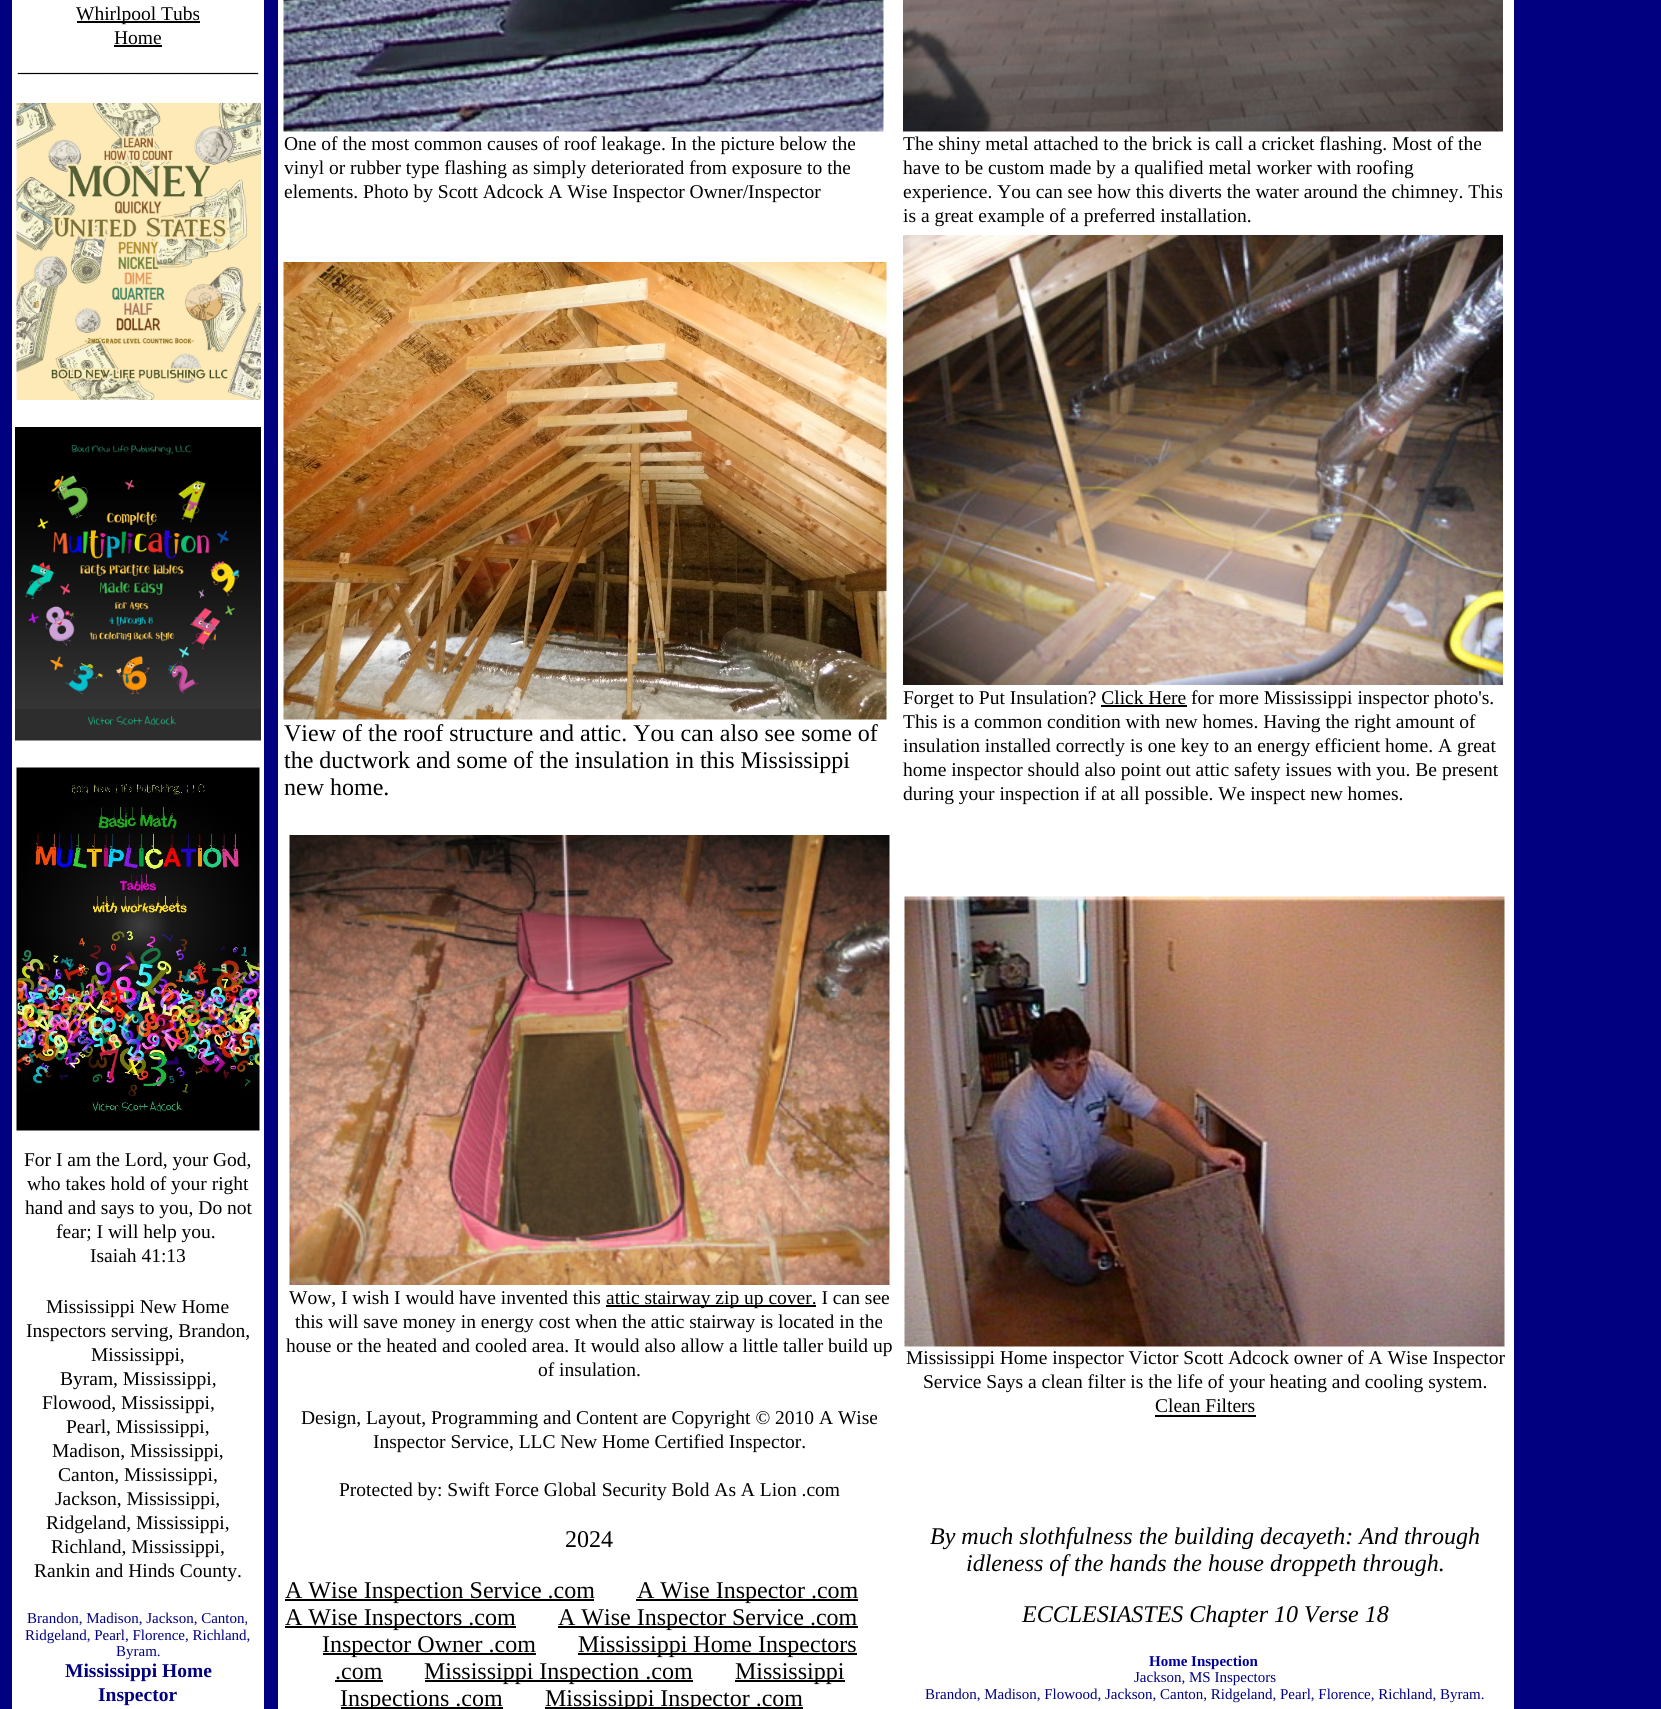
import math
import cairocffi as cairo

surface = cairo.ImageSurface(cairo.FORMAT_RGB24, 1661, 1709)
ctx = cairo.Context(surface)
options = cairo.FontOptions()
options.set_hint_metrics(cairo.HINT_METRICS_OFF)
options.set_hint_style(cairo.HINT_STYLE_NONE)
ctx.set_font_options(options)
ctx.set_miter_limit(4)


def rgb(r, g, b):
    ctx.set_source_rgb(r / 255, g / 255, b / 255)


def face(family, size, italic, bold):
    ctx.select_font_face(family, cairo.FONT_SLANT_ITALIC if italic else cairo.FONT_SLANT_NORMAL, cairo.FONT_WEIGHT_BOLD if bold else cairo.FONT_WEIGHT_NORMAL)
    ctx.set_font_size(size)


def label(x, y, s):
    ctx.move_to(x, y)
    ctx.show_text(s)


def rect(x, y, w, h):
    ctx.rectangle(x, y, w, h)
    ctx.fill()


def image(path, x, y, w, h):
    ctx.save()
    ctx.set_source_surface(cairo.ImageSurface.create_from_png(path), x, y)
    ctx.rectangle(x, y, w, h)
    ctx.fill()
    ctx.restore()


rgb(0, 0, 128)
ctx.paint()
rgb(255, 255, 255)
rect(12, 0, 252, 1709)
rgb(0, 0, 0)
rect(77, 21, 123, 2)
face('Liberation Serif', 19.5, 0, 0)
label(76, 20, 'Whirlpool Tubs')
label(114, 44, 'Home')
rect(114, 45, 48, 2)
face('Liberation Serif', 24, 0, 0)
label(18, 71, '____________________')
image('image0.png', 16, 103, 245, 297)
image('image1.png', 15, 427, 246, 314)
image('image2.png', 16, 767, 244, 364)
face('Liberation Serif', 19.5, 0, 0)
label(24, 1166, 'For I am the Lord, your God,')
label(27, 1190, 'who takes hold of your right')
label(25, 1214, 'hand and says to you, Do not')
label(56, 1238, 'fear; I will help you.')
label(90, 1262, 'Isaiah 41:13')
label(46, 1313, 'Mississippi New Home')
label(26, 1337, 'Inspectors serving, Brandon,')
label(91, 1361, 'Mississippi,')
label(60, 1385, 'Byram, Mississippi,')
label(42, 1409, 'Flowood, Mississippi,')
label(66, 1433, 'Pearl, Mississippi,')
label(52, 1457, 'Madison, Mississippi,')
label(58, 1481, 'Canton, Mississippi,')
label(55, 1505, 'Jackson, Mississippi,')
label(46, 1529, 'Ridgeland, Mississippi,')
label(51, 1553, 'Richland, Mississippi,')
label(34, 1577, 'Rankin and Hinds County.')
face('Liberation Serif', 15, 0, 0)
rgb(0, 0, 128)
label(27, 1623, 'Brandon, Madison, Jackson, Canton,')
label(25, 1640, 'Ridgeland, Pearl, Florence, Richland,')
label(116, 1656, 'Byram.')
face('Liberation Serif', 19.5, 0, 1)
label(65, 1677, 'Mississippi Home')
label(98, 1701, 'Inspector')
rgb(255, 255, 255)
rect(278, 0, 1236, 1709)
image('image3.png', 283, 0, 601, 132)
face('Liberation Serif', 19.5, 0, 0)
rgb(0, 0, 0)
label(284, 150, 'One of the most common causes of roof leakage. In the picture below the')
label(284, 174, 'vinyl or rubber type flashing as simply deteriorated from exposure to the')
label(284, 198, 'elements. Photo by Scott Adcock A Wise Inspector Owner/Inspector')
image('image4.png', 903, 0, 600, 132)
label(903, 150, 'The shiny metal attached to the brick is call a cricket flashing. Most of the')
label(903, 174, 'have to be custom made by a qualified metal worker with roofing')
label(903, 198, 'experience. You can see how this diverts the water around the chimney. This')
label(903, 222, 'is a great example of a preferred installation.')
image('image5.png', 283, 262, 604, 458)
face('Liberation Serif', 24, 0, 0)
label(284, 741, 'View of the roof structure and attic. You can also see some of')
label(284, 768, 'the ductwork and some of the insulation in this Mississippi')
label(284, 795, 'new home.')
image('image6.png', 903, 235, 600, 450)
face('Liberation Serif', 19.5, 0, 0)
label(903, 704, 'Forget to Put Insulation? Click Here for more Mississippi inspector photo\'s.')
rect(1101, 705, 86, 2)
label(903, 728, 'This is a common condition with new homes. Having the right amount of')
label(903, 752, 'insulation installed correctly is one key to an energy efficient home. A great')
label(903, 776, 'home inspector should also point out attic safety issues with you. Be present')
label(903, 800, 'during your inspection if at all possible. We inspect new homes.')
image('image7.png', 289, 835, 601, 450)
label(289, 1304, 'Wow, I wish I would have invented this')
rect(606, 1305, 210, 2)
label(606, 1304, 'attic stairway zip up cover. I can see')
label(295, 1328, 'this will save money in energy cost when the attic stairway is located in the')
label(286, 1352, 'house or the heated and cooled area. It would also allow a little taller build up')
label(538, 1376, 'of insulation.')
label(301, 1424, 'Design, Layout, Programming and Content are Copyright © 2010 A Wise')
label(373, 1448, 'Inspector Service, LLC New Home Certified Inspector.')
label(339, 1496, 'Protected by: Swift Force Global Security Bold As A Lion .com')
face('Liberation Serif', 24, 0, 0)
label(565, 1547, '2024')
rect(285, 1599, 309, 2)
label(285, 1598, 'A Wise Inspection Service .com')
rect(636, 1599, 222, 2)
label(637, 1598, 'A Wise Inspector .com')
rect(285, 1626, 231, 2)
label(285, 1625, 'A Wise Inspectors .com')
rect(558, 1626, 300, 2)
label(558, 1625, 'A Wise Inspector Service .com')
rect(323, 1653, 213, 2)
label(322, 1652, 'Inspector Owner .com')
rect(578, 1653, 279, 2)
label(578, 1652, 'Mississippi Home Inspectors')
label(335, 1679, '.com')
rect(335, 1680, 48, 2)
rect(425, 1680, 268, 2)
label(424, 1679, 'Mississippi Inspection .com')
rect(735, 1680, 110, 2)
label(735, 1679, 'Mississippi')
rect(341, 1707, 162, 2)
label(340, 1706, 'Inspections .com')
rect(545, 1707, 258, 2)
label(545, 1706, 'Mississippi Inspector .com')
image('image8.png', 904, 896, 601, 451)
face('Liberation Serif', 19.5, 0, 0)
label(906, 1364, 'Mississippi Home inspector Victor Scott Adcock owner of A Wise Inspector')
label(923, 1388, 'Service Says a clean filter is the life of your heating and cooling system.')
label(1155, 1412, 'Clean Filters')
rect(1155, 1415, 101, 2)
face('Liberation Serif', 24, 1, 0)
label(930, 1544, 'By much slothfulness the building decayeth: And through')
label(966, 1571, 'idleness of the hands the house droppeth through.')
label(1022, 1622, 'ECCLESIASTES Chapter 10 Verse 18')
face('Liberation Serif', 15, 0, 1)
rgb(0, 0, 153)
label(1149, 1666, 'Home Inspection')
face('Liberation Serif', 15, 0, 0)
rgb(0, 0, 128)
label(1134, 1682, 'Jackson, MS Inspectors')
label(925, 1699, 'Brandon, Madison, Flowood, Jackson, Canton, Ridgeland, Pearl, Florence, Richland, Byram.')
surface.write_to_png('render.png')
